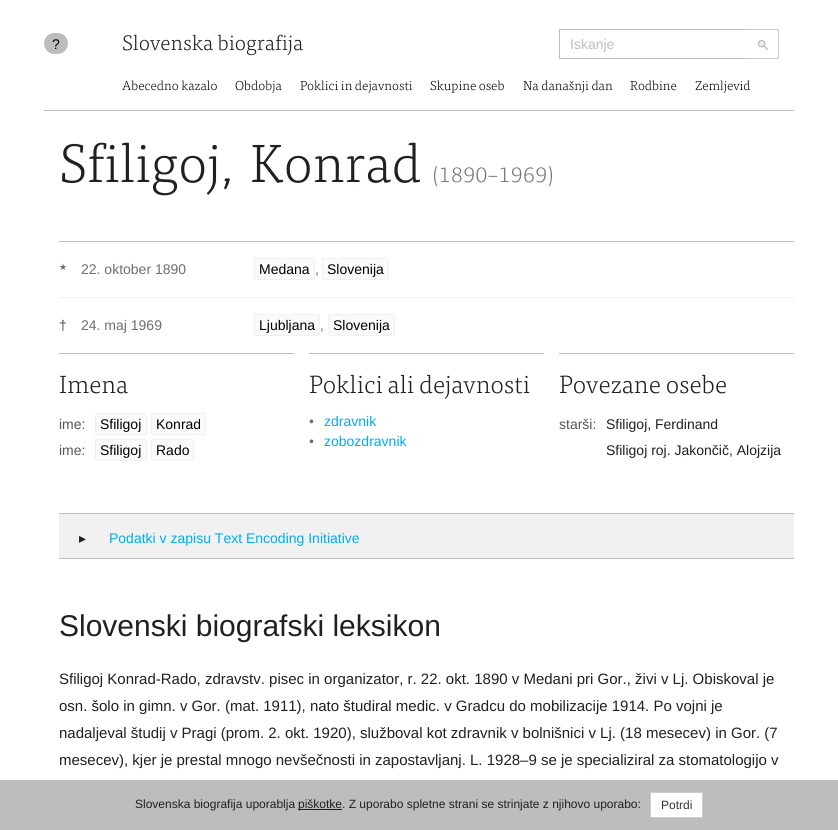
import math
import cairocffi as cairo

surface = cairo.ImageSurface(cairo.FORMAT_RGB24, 838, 830)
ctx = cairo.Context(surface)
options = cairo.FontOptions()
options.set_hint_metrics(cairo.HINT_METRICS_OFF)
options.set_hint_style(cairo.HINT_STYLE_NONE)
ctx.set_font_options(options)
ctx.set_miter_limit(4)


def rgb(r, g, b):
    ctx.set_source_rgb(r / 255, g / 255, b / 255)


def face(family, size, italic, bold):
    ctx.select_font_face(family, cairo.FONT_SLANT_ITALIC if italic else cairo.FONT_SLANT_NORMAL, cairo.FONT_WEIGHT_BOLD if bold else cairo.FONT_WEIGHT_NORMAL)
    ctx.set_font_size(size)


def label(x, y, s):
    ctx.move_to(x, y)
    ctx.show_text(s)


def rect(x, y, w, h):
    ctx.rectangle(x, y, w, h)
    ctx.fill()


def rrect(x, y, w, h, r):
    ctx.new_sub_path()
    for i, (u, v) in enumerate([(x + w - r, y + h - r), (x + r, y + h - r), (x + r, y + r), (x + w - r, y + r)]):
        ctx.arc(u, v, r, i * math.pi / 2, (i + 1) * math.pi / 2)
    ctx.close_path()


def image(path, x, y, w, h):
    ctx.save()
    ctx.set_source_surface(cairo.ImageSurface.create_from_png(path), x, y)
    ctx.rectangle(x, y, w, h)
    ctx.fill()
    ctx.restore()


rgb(255, 255, 255)
ctx.paint()
rgb(187, 189, 191)
rect(44, 110, 750, 1)
rrect(44, 33, 24, 21, 10.5)
ctx.fill()
face('Liberation Sans', 14, 0, 0)
rgb(0, 0, 0)
label(52, 49, '?')
face('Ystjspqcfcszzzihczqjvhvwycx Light', 21, 0, 0)
rgb(35, 31, 32)
label(122, 50, 'Slovenska biografija')
rgb(187, 189, 191)
rect(559, 29, 190, 1)
rect(559, 58, 190, 1)
rect(559, 29, 1, 30)
face('Liberation Sans', 14, 0, 0)
label(570, 49, 'Iskanje')
rgb(204, 204, 204)
rect(748, 29, 31, 1)
rect(778, 29, 1, 30)
rect(748, 58, 31, 1)
image('image0.png', 758, 40, 10, 10)
face('Ystjspqcfcszzzihczqjvhvwycx Light', 13, 0, 0)
rgb(0, 0, 0)
label(122, 90, 'Abecedno kazalo')
label(235, 90, 'Obdobja')
label(300, 90, 'Poklici in dejavnosti')
label(430, 90, 'Skupine oseb')
label(523, 90, 'Na današnji dan')
label(630, 90, 'Rodbine')
label(695, 90, 'Zemljevid')
face('Ystjspqcfcszzzihczqjvhvwycx Light', 54, 0, 0)
rgb(35, 31, 32)
label(59, 182, 'Sfiligoj, Konrad')
face('Ystjspqcfcszzzihczqjvhvwycx Light', 21.5, 0, 0)
rgb(119, 119, 119)
label(432, 182, '(1890–1969)')
rgb(187, 189, 191)
rect(59, 241, 735, 1)
rgb(240, 240, 240)
rect(59, 297, 735, 1)
face('DejaVu Sans', 9, 0, 0)
rgb(109, 110, 112)
label(59, 270, '★')
face('Liberation Sans', 14, 0, 0)
label(81, 274, '22. oktober 1890')
rgb(251, 250, 249)
rrect(254.5, 258.5, 60, 21, 1.5)
ctx.fill_preserve()
rgb(240, 240, 240)
ctx.set_line_width(1)
ctx.stroke()
rgb(0, 0, 0)
label(259, 274, 'Medana')
rgb(109, 110, 112)
label(315, 274, ',')
rgb(251, 250, 249)
rrect(322.5, 258.5, 66, 21, 1.5)
ctx.fill_preserve()
rgb(240, 240, 240)
ctx.stroke()
rgb(0, 0, 0)
label(327, 274, 'Slovenija')
face('Liberation Sans', 14, 0, 1)
rgb(109, 110, 112)
label(59, 330, '†')
face('Liberation Sans', 14, 0, 0)
label(81, 330, '24. maj 1969')
rgb(251, 250, 249)
rrect(254.5, 314.5, 65, 21, 1.5)
ctx.fill_preserve()
rgb(240, 240, 240)
ctx.stroke()
rgb(0, 0, 0)
label(259, 330, 'Ljubljana')
rgb(109, 110, 112)
label(320, 330, ',')
rgb(251, 250, 249)
rrect(328.5, 314.5, 66, 21, 1.5)
ctx.fill_preserve()
rgb(240, 240, 240)
ctx.stroke()
rgb(0, 0, 0)
label(333, 330, 'Slovenija')
rgb(187, 189, 191)
rect(59, 353, 235, 1)
face('Ystjspqcfcszzzihczqjvhvwycx Light', 25, 0, 0)
rgb(35, 31, 32)
label(59, 393, 'Imena')
face('Liberation Sans', 14, 0, 0)
rgb(85, 85, 85)
label(59, 429, 'ime:')
rgb(251, 250, 249)
rrect(95.5, 413.5, 51, 21, 1.5)
ctx.fill_preserve()
rgb(240, 240, 240)
ctx.stroke()
rgb(0, 0, 0)
label(100, 429, 'Sfiligoj')
rgb(251, 250, 249)
rrect(151.5, 413.5, 54, 21, 1.5)
ctx.fill_preserve()
rgb(240, 240, 240)
ctx.stroke()
rgb(0, 0, 0)
label(156, 429, 'Konrad')
rgb(85, 85, 85)
label(59, 455, 'ime:')
rgb(251, 250, 249)
rrect(95.5, 439.5, 51, 21, 1.5)
ctx.fill_preserve()
rgb(240, 240, 240)
ctx.stroke()
rgb(0, 0, 0)
label(100, 455, 'Sfiligoj')
rgb(251, 250, 249)
rrect(151.5, 439.5, 42, 21, 1.5)
ctx.fill_preserve()
rgb(240, 240, 240)
ctx.stroke()
rgb(0, 0, 0)
label(156, 455, 'Rado')
rgb(187, 189, 191)
rect(309, 353, 235, 1)
face('Ystjspqcfcszzzihczqjvhvwycx Light', 25, 0, 0)
rgb(35, 31, 32)
label(309, 393, 'Poklici ali dejavnosti')
face('Liberation Sans', 14, 0, 0)
rgb(109, 110, 112)
label(309, 426, '•')
rgb(0, 173, 238)
label(324, 426, 'zdravnik')
rgb(109, 110, 112)
label(309, 446, '•')
rgb(0, 173, 238)
label(324, 446, 'zobozdravnik')
rgb(187, 189, 191)
rect(559, 353, 235, 1)
face('Ystjspqcfcszzzihczqjvhvwycx Light', 25, 0, 0)
rgb(35, 31, 32)
label(559, 393, 'Povezane osebe')
face('Liberation Sans', 14, 0, 0)
rgb(85, 85, 85)
label(559, 429, 'starši:')
rgb(35, 31, 32)
label(606, 429, 'Sfiligoj, Ferdinand')
label(606, 455, 'Sfiligoj roj. Jakončič, Alojzija')
rgb(241, 241, 242)
rect(59, 514, 735, 44)
rgb(187, 189, 191)
rect(59, 513, 735, 1)
rect(59, 558, 735, 1)
face('DejaVu Sans', 14, 0, 0)
rgb(35, 31, 32)
label(79, 543, '▸')
face('Liberation Sans', 14, 0, 0)
rgb(0, 173, 238)
label(109, 543, 'Podatki v zapisu Text Encoding Initiative')
face('Liberation Sans', 30, 0, 0)
rgb(35, 31, 32)
label(59, 636, 'Slovenski biografski leksikon')
face('Liberation Sans', 15, 0, 0)
label(59, 684, 'Sfiligoj Konrad-Rado, zdravstv. pisec in organizator, r. 22. okt. 1890 v Medani pri Gor., živi v Lj. Obiskoval je')
label(59, 711, 'osn. šolo in gimn. v Gor. (mat. 1911), nato študiral medic. v Gradcu do mobilizacije 1914. Po vojni je')
label(59, 738, 'nadaljeval študij v Pragi (prom. 2. okt. 1920), služboval kot zdravnik v bolnišnici v Lj. (18 mesecev) in Gor. (7')
label(59, 765, 'mesecev), kjer je prestal mnogo nevšečnosti in zapostavljanj. L. 1928–9 se je specializiral za stomatologijo v')
rgb(187, 189, 191)
rect(0, 780, 838, 50)
face('Liberation Sans', 12, 0, 0)
rgb(35, 31, 32)
label(135, 808, 'Slovenska biografija uporablja')
rect(298, 809, 44, 1)
label(298, 808, 'piškotke. Z uporabo spletne strani se strinjate z njihovo uporabo:')
rgb(255, 255, 255)
ctx.rectangle(650.5, 792.5, 52, 25)
ctx.fill_preserve()
rgb(204, 204, 204)
ctx.stroke()
rgb(51, 51, 51)
label(661, 809, 'Potrdi')
surface.write_to_png('render.png')
